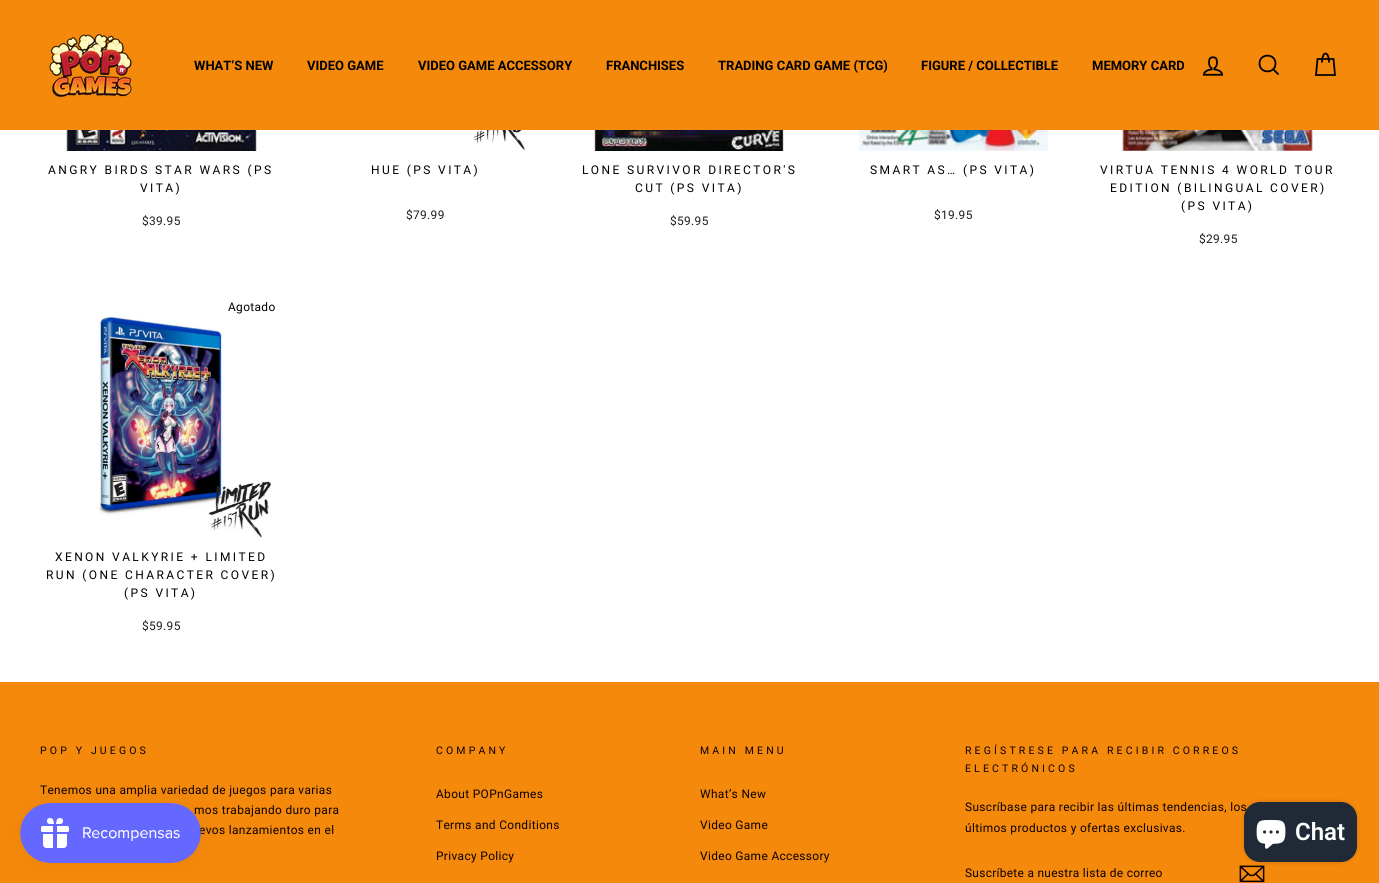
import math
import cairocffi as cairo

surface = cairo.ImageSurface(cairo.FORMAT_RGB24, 1379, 883)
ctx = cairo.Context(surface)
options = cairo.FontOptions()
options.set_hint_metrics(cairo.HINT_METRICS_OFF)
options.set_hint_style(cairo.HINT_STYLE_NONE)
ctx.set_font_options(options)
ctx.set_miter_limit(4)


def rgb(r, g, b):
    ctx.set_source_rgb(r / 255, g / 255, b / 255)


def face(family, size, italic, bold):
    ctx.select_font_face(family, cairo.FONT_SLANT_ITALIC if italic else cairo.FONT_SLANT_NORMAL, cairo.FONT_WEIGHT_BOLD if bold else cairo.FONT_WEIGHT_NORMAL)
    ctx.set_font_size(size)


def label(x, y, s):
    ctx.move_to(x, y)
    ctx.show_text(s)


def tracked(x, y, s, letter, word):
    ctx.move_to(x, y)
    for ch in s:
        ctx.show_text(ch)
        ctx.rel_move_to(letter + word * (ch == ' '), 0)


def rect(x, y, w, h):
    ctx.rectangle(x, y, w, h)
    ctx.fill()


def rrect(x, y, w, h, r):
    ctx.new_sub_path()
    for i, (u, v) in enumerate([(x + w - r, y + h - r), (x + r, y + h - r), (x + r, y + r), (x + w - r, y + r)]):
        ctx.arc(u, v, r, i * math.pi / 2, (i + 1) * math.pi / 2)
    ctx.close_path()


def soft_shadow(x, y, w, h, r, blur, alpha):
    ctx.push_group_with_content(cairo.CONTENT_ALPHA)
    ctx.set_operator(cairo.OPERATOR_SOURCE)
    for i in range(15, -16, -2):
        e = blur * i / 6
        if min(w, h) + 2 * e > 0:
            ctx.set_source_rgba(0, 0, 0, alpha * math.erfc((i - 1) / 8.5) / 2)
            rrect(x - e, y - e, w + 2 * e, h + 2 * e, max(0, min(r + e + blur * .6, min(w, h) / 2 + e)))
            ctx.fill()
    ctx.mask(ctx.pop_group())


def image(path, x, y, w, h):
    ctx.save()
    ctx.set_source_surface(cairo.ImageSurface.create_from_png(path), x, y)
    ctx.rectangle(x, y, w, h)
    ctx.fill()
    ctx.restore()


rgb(255, 255, 255)
ctx.paint()
rgb(245, 137, 11)
rect(0, 0, 1379, 130)
image('image0.png', 49, 34, 83, 63)
face('Roboto', 13, 0, 1)
rgb(0, 0, 0)
label(194, 70, 'WHAT’S NEW')
label(307, 70, 'VIDEO GAME')
label(418, 70, 'VIDEO GAME ACCESSORY')
label(606, 70, 'FRANCHISES')
label(718, 70, 'TRADING CARD GAME (TCG)')
label(921, 70, 'FIGURE / COLLECTIBLE')
label(1092, 70, 'MEMORY CARD')
image('image1.png', 1202, 56, 22, 20)
ctx.new_path()
ctx.move_to(1275.5, 63.5)
ctx.curve_to(1275.5, 74, 1259.5, 74, 1259.5, 63.5)
ctx.curve_to(1259.5, 53, 1275.5, 53, 1275.5, 63.5)
ctx.close_path()
ctx.move_to(1278.5, 74.5)
ctx.line_to(1273.5, 69.5)
ctx.set_line_width(1.8)
ctx.stroke()
ctx.new_path()
ctx.move_to(1322, 62.5)
ctx.curve_to(1322, 50.5, 1329, 50.5, 1329, 62.5)
ctx.move_to(1317.5, 59)
ctx.line_to(1333.5, 59)
ctx.line_to(1335, 75)
ctx.line_to(1316, 75)
ctx.close_path()
ctx.stroke()
image('image2.png', 66, 130, 191, 21)
face('Roboto', 12, 0, 0)
tracked(48, 174, 'ANGRY BIRDS STAR WARS (PS', 2.4, 0)
tracked(140, 192, 'VITA)', 2.4, 0)
face('Roboto', 11.9, 0, 0)
rgb(28, 29, 29)
tracked(142, 225, '$39.95', 0.35, 0)
image('image3.png', 362, 130, 173, 21)
face('Roboto', 12, 0, 0)
rgb(0, 0, 0)
tracked(371, 174, 'HUE (PS VITA)', 2.4, 0)
face('Roboto', 11.9, 0, 0)
rgb(28, 29, 29)
tracked(406, 219, '$79.99', 0.35, 0)
image('image4.png', 594, 130, 190, 21)
face('Roboto', 12, 0, 0)
rgb(0, 0, 0)
tracked(582, 174, 'LONE SURVIVOR DIRECTOR\'S', 2.4, 0)
tracked(635, 192, 'CUT (PS VITA)', 2.4, 0)
face('Roboto', 11.9, 0, 0)
rgb(28, 29, 29)
tracked(670, 225, '$59.95', 0.35, 0)
image('image5.png', 858, 130, 191, 21)
face('Roboto', 12, 0, 0)
rgb(0, 0, 0)
tracked(870, 174, 'SMART AS… (PS VITA)', 2.4, 0)
face('Roboto', 11.9, 0, 0)
rgb(28, 29, 29)
tracked(934, 219, '$19.95', 0.35, 0)
image('image6.png', 1122, 130, 191, 21)
face('Roboto', 12, 0, 0)
rgb(0, 0, 0)
tracked(1100, 174, 'VIRTUA TENNIS 4 WORLD TOUR', 2.4, 0)
tracked(1110, 192, 'EDITION (BILINGUAL COVER)', 2.4, 0)
tracked(1181, 210, '(PS VITA)', 2.4, 0)
face('Roboto', 11.9, 0, 0)
rgb(28, 29, 29)
tracked(1199, 243, '$29.95', 0.35, 0)
rgb(0, 0, 0)
tracked(228, 311, 'Agotado', 0.35, 0)
image('image7.png', 98, 315, 173, 223)
face('Roboto', 12, 0, 0)
tracked(55, 561, 'XENON VALKYRIE + LIMITED', 2.4, 0)
tracked(46, 579, 'RUN (ONE CHARACTER COVER)', 2.4, 0)
tracked(124, 597, '(PS VITA)', 2.4, 0)
face('Roboto', 11.9, 0, 0)
rgb(28, 29, 29)
tracked(142, 630, '$59.95', 0.35, 0)
rgb(245, 137, 11)
rect(0, 682, 1379, 201)
face('Roboto', 10.5, 0, 0)
rgb(11, 0, 0)
tracked(40, 754, 'POP Y JUEGOS', 3.15, 0)
face('Roboto', 11.9, 0, 0)
tracked(40, 794, 'Tenemos una amplia variedad de juegos para varias', 0.35, 0)
tracked(194, 814, 'mos trabajando duro para', 0.35, 0)
tracked(199, 834, 'evos lanzamientos en el', 0.35, 0)
face('Roboto', 10.5, 0, 0)
tracked(436, 754, 'COMPANY', 3.15, 0)
face('Roboto', 11.9, 0, 0)
tracked(436, 798, 'About POPnGames', 0.35, 0)
tracked(436, 829, 'Terms and Conditions', 0.35, 0)
tracked(436, 860, 'Privacy Policy', 0.35, 0)
face('Roboto', 10.5, 0, 0)
tracked(700, 754, 'MAIN MENU', 3.15, 0)
face('Roboto', 11.9, 0, 0)
tracked(700, 798, 'What’s New', 0.35, 0)
tracked(700, 829, 'Video Game', 0.35, 0)
tracked(700, 860, 'Video Game Accessory', 0.35, 0)
face('Roboto', 10.5, 0, 0)
tracked(965, 754, 'REGÍSTRESE PARA RECIBIR CORREOS', 3.15, 0)
tracked(965, 772, 'ELECTRÓNICOS', 3.15, 0)
face('Roboto', 11.9, 0, 0)
tracked(965, 811, 'Suscríbase para recibir las últimas tendencias, los', 0.35, 0)
tracked(965, 832, 'últimos productos y ofertas exclusivas.', 0.35, 0)
tracked(965, 877, 'Suscríbete a nuestra lista de correo', 0.3, 0)
image('image8.png', 1239, 865, 26, 18)
rgb(0, 0, 0)
soft_shadow(20, 803, 181, 60, 30, 12.5, 0.05)
image('image9.png', 20, 803, 181, 60)
soft_shadow(1244, 802, 113, 60, 16, 2.5, 0.15)
rgb(32, 42, 54)
rrect(1244, 802, 113, 60, 16)
ctx.fill()
image('image10.png', 1256, 820, 30, 29)
face('Roboto SemiBold', 24, 0, 0)
rgb(255, 255, 255)
label(1295, 840, 'Chat')
surface.write_to_png('render.png')
